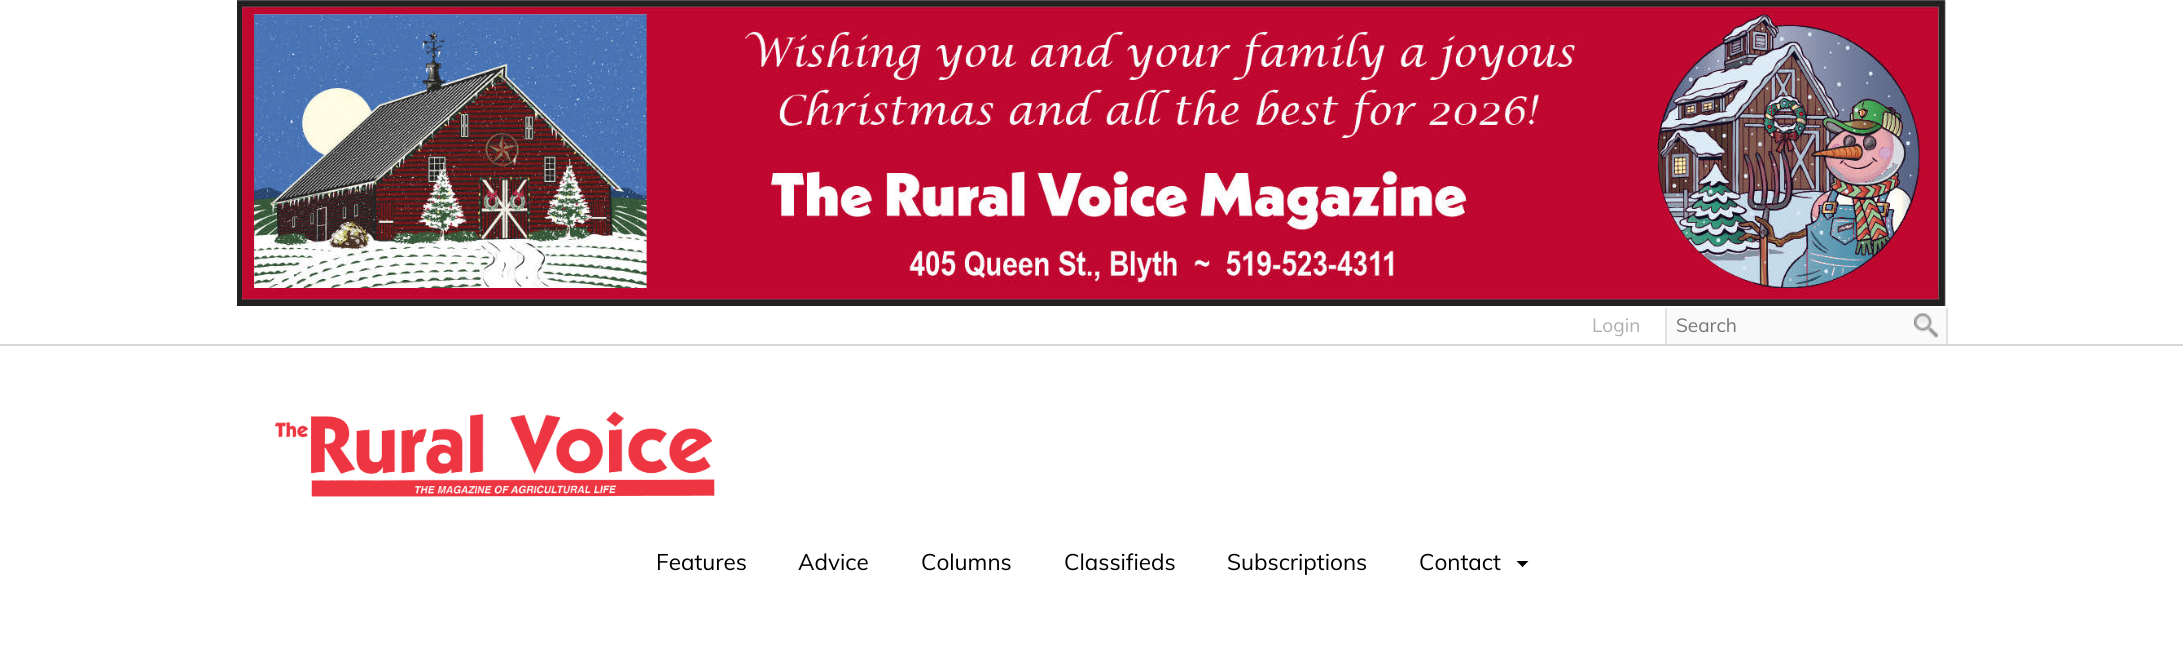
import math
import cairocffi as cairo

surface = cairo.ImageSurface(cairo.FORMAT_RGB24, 2183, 672)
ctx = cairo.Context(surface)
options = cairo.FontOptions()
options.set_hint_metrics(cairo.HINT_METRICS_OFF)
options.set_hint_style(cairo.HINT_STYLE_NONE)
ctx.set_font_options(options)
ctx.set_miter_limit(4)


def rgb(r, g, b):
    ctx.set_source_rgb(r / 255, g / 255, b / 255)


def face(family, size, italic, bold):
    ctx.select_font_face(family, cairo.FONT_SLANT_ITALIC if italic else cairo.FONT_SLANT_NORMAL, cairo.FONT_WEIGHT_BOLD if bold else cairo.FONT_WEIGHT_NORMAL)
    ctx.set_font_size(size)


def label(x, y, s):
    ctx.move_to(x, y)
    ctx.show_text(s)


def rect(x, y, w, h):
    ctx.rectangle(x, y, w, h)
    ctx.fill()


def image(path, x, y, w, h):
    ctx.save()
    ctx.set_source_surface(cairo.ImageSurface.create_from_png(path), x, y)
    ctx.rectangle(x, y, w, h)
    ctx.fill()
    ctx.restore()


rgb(255, 255, 255)
ctx.paint()
image('image0.png', 237, 0, 1710, 306)
rgb(215, 215, 215)
rect(0, 344, 2183, 2)
face('Muli', 19, 0, 0)
rgb(175, 175, 175)
label(1592, 332, 'Login')
rgb(250, 250, 250)
rect(1667, 308, 279, 36)
rgb(226, 226, 226)
rect(1946, 308, 2, 36)
rect(1665, 308, 2, 36)
rgb(117, 117, 117)
label(1676, 332, 'Search')
image('image1.png', 1914, 313, 24, 25)
image('image2.png', 275, 411, 440, 86)
face('Muli', 22.5, 0, 0)
rgb(0, 0, 0)
label(656, 570, 'Features')
label(798, 570, 'Advice')
label(921, 570, 'Columns')
label(1064, 570, 'Classifieds')
label(1227, 570, 'Subscriptions')
label(1419, 570, 'Contact')
ctx.new_path()
ctx.move_to(1516.5, 561)
ctx.line_to(1528.5, 561)
ctx.line_to(1522.5, 567)
ctx.close_path()
ctx.fill()
surface.write_to_png('render.png')
